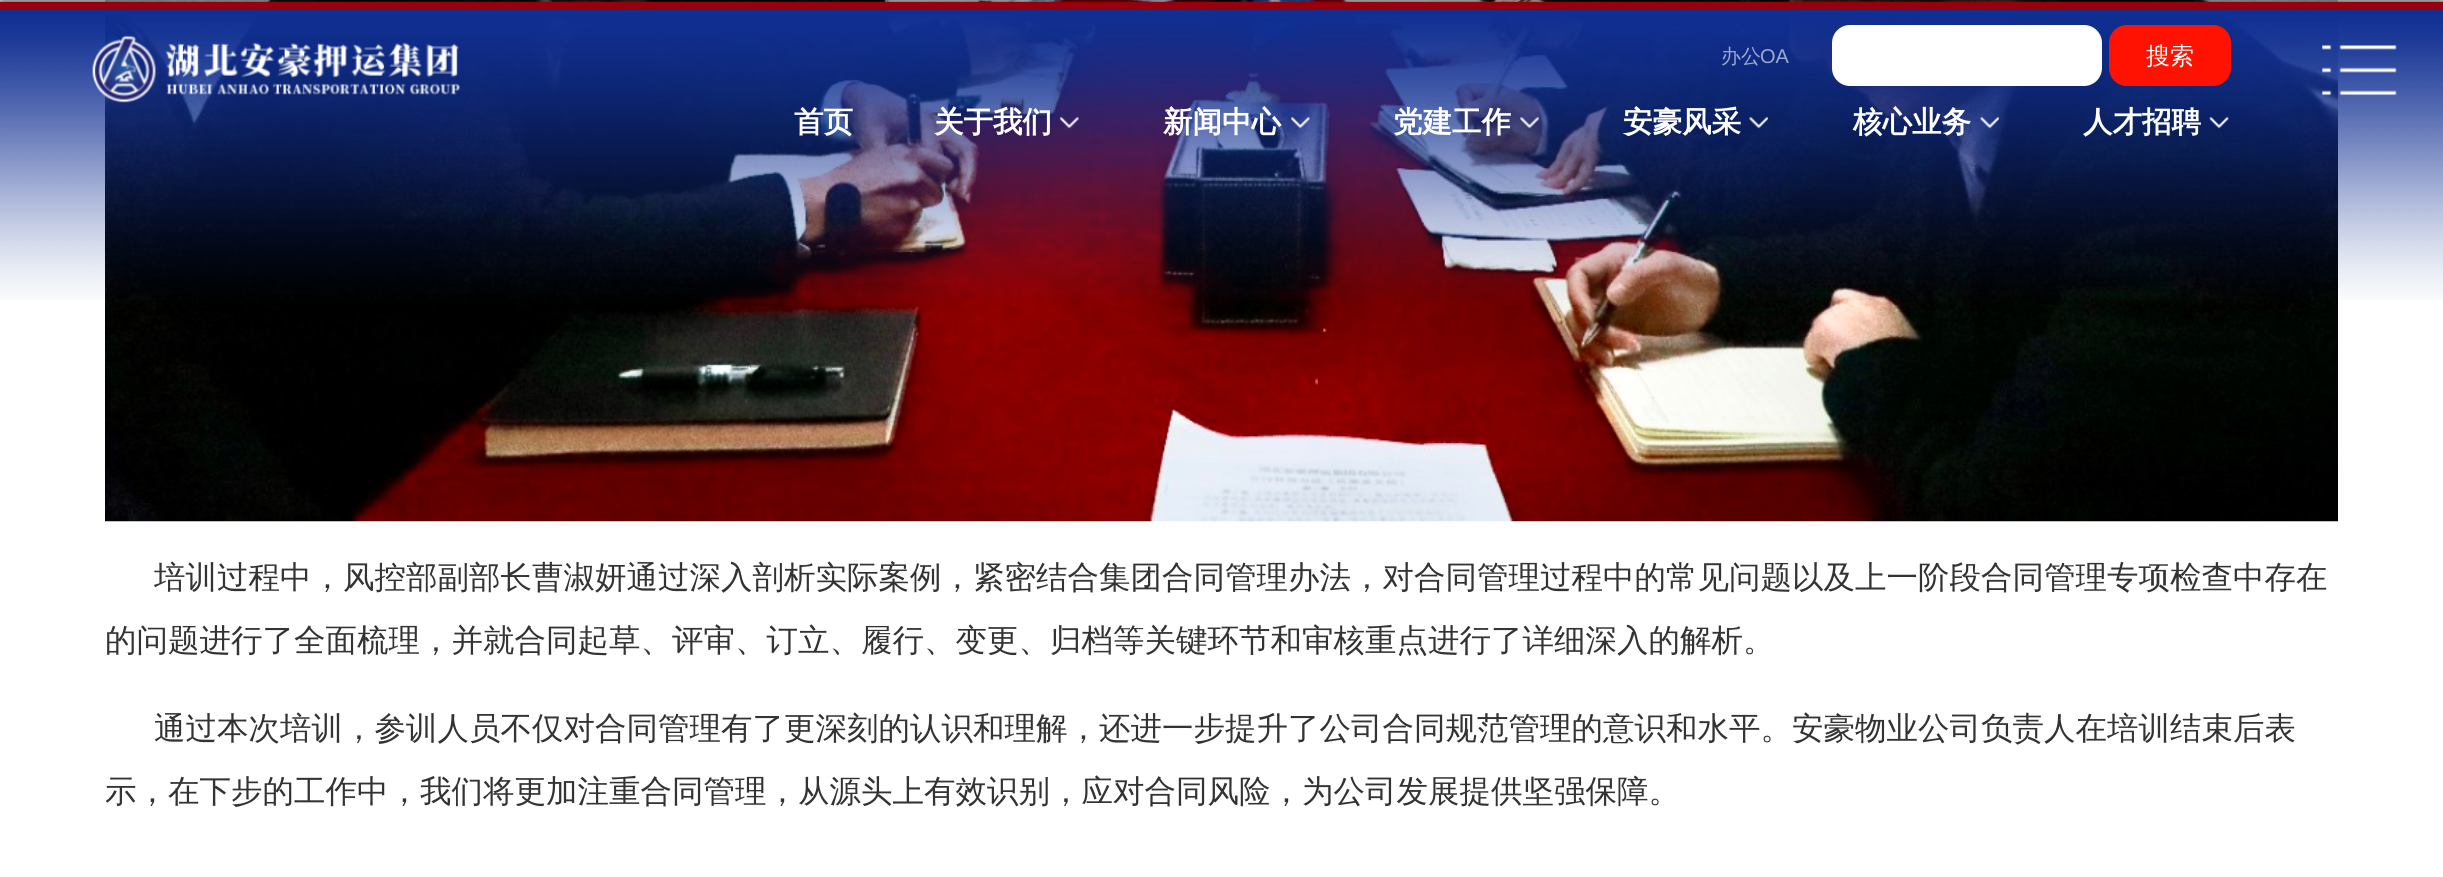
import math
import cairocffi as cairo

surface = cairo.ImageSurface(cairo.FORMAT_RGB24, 2443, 877)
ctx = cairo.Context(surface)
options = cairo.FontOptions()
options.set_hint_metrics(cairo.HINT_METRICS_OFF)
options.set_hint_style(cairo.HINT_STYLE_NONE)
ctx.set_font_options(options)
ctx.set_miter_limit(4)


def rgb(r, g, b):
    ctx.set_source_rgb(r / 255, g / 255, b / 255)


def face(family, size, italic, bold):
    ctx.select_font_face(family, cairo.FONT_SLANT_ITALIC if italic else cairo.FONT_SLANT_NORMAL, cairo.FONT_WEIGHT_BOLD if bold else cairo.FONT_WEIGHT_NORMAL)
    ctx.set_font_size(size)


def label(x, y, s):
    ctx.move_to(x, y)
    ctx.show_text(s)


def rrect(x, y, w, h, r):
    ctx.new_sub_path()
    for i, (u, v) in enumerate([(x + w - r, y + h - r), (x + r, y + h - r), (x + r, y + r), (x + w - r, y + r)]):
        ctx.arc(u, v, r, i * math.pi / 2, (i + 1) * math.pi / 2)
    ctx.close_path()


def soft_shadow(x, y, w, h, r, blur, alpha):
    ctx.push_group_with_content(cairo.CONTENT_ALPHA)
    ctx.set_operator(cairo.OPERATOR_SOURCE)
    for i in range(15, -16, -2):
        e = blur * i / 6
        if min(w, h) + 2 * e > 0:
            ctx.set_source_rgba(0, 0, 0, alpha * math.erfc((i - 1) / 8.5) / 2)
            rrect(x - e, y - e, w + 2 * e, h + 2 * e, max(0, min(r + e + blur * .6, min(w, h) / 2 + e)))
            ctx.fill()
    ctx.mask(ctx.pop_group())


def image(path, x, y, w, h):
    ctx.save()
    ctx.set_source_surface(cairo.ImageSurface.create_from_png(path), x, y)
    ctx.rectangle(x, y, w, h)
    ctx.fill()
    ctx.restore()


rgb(255, 255, 255)
ctx.paint()
image('image9.png', 105, 0, 2233, 522)
rgb(0, 0, 0)
soft_shadow(0, -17, 2443, 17, 0, 9, 0.8)
image('image0.png', 0, 1, 2443, 299)
image('image1.png', 92, 35, 368, 68)
face('WenQuanYi Zen Hei Medium', 20, 0, 0)
rgb(159, 170, 205)
label(1721, 63, '办公')
face('Liberation Sans', 20, 0, 0)
label(1760, 63, 'OA')
rgb(255, 255, 255)
rrect(1832, 25, 270, 61, 18)
ctx.fill()
rgb(255, 18, 1)
rrect(2109, 25, 122, 61, 18)
ctx.fill()
face('WenQuanYi Zen Hei Medium', 24, 0, 0)
rgb(255, 255, 255)
label(2146, 64, '搜索')
face('WenQuanYi Zen Hei', 29.5, 0, 1)
label(794, 132, '首页')
label(934, 132, '关于我们')
image('image2.png', 1060, 116, 19, 13)
label(1163, 132, '新闻中心')
image('image3.png', 1291, 116, 19, 13)
label(1393, 132, '党建工作')
image('image4.png', 1520, 116, 19, 13)
label(1623, 132, '安豪风采')
image('image5.png', 1749, 116, 19, 13)
label(1853, 132, '核心业务')
image('image6.png', 1980, 116, 19, 13)
label(2083, 132, '人才招聘')
image('image7.png', 2209, 116, 20, 13)
image('image8.png', 2322, 45, 75, 51)
face('WenQuanYi Zen Hei Medium', 31.5, 0, 0)
rgb(51, 51, 51)
label(154, 588, '培训过程中，风控部副部长曹淑妍通过深入剖析实际案例，紧密结合集团合同管理办法，对合同管理过程中的常见问题以及上一阶段合同管理专项检查中存在')
label(105, 651, '的问题进行了全面梳理，并就合同起草、评审、订立、履行、变更、归档等关键环节和审核重点进行了详细深入的解析。')
label(154, 739, '通过本次培训，参训人员不仅对合同管理有了更深刻的认识和理解，还进一步提升了公司合同规范管理的意识和水平。安豪物业公司负责人在培训结束后表')
label(105, 802, '示，在下步的工作中，我们将更加注重合同管理，从源头上有效识别，应对合同风险，为公司发展提供坚强保障。')
surface.write_to_png('render.png')
